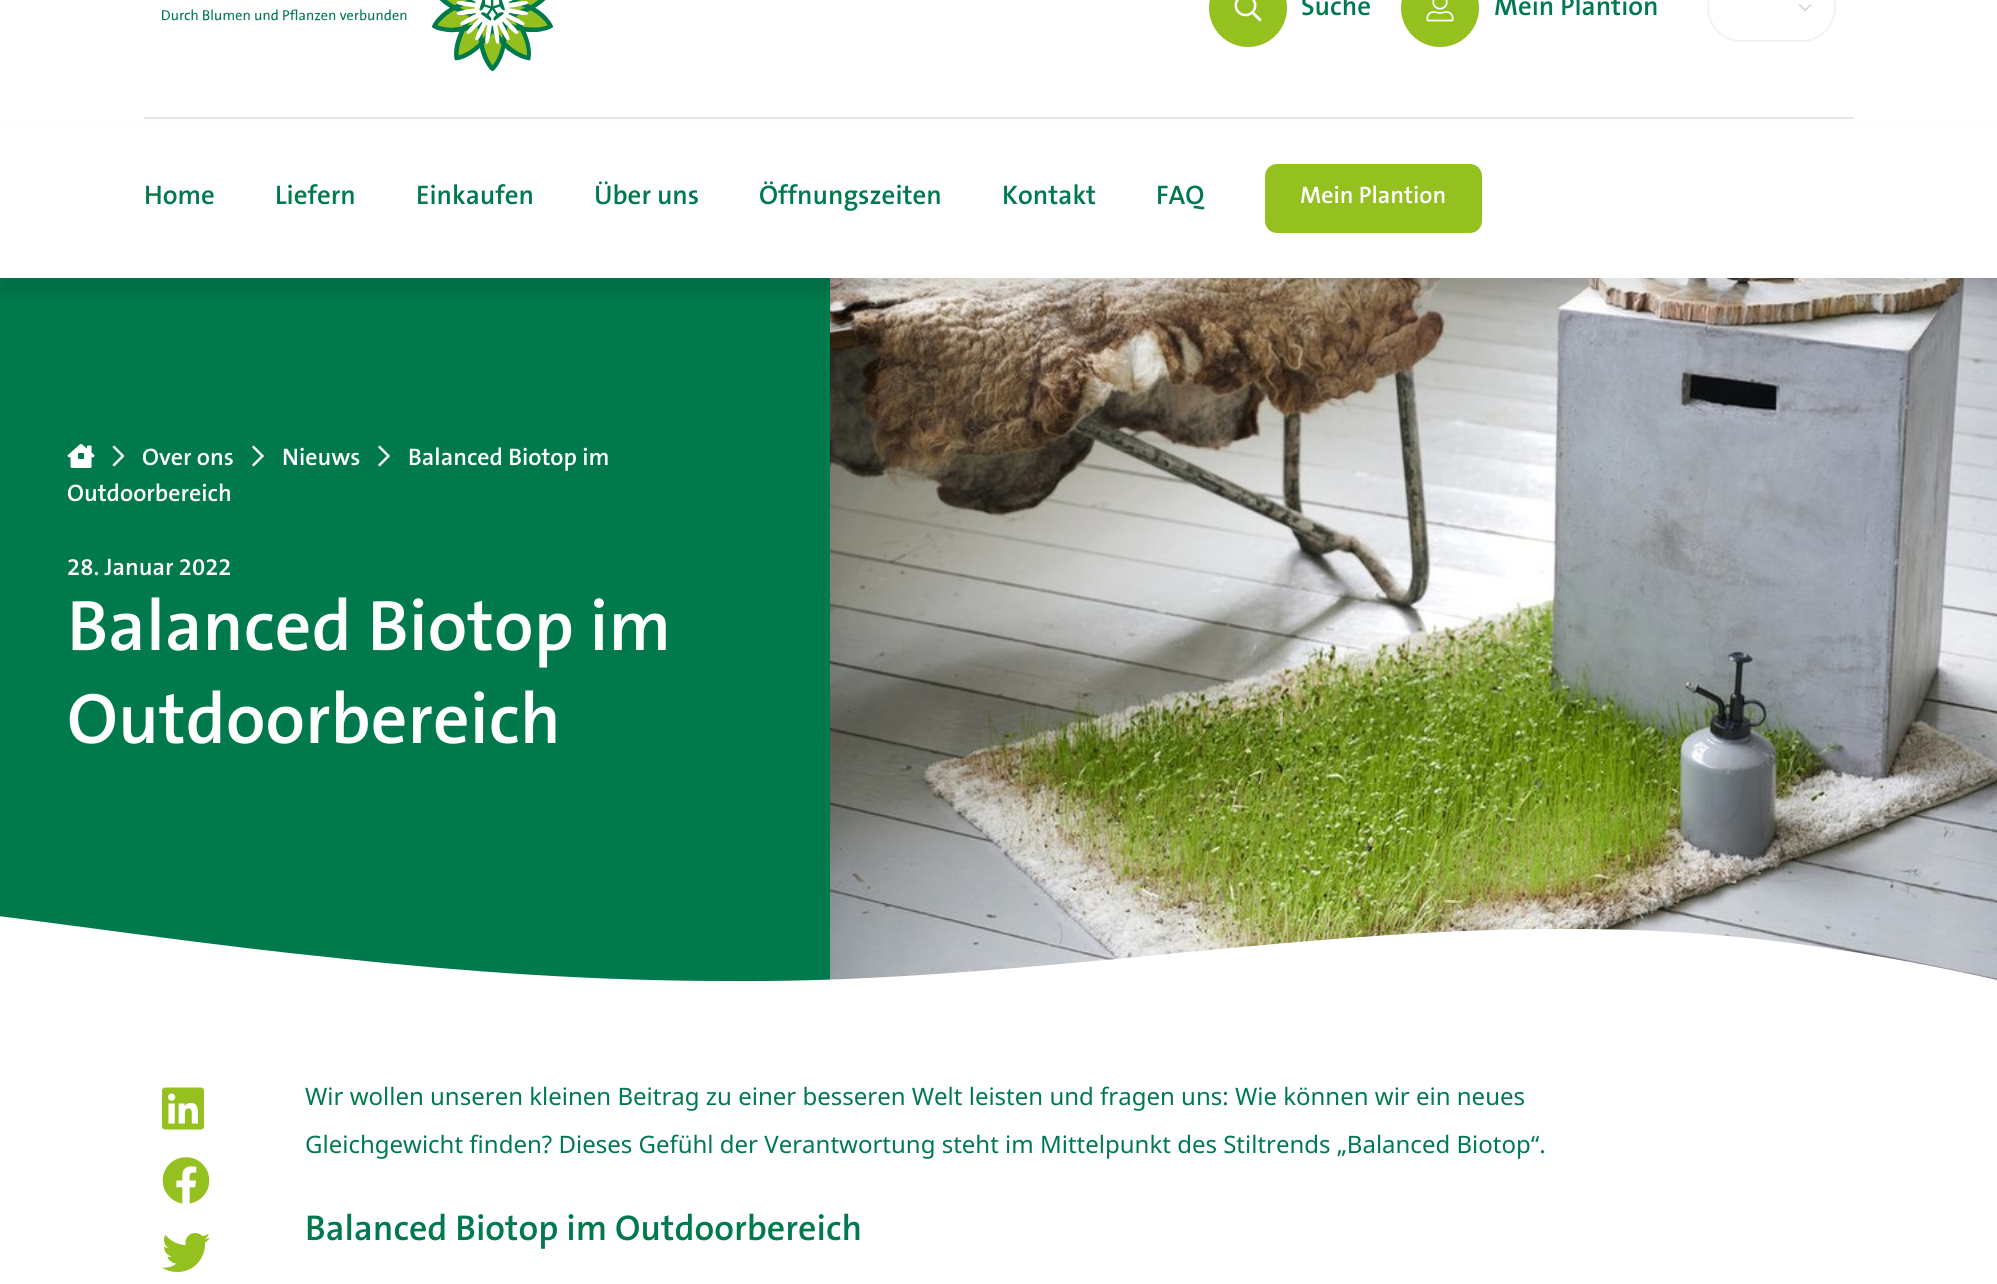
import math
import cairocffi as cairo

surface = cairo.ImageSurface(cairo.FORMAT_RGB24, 1997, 1284)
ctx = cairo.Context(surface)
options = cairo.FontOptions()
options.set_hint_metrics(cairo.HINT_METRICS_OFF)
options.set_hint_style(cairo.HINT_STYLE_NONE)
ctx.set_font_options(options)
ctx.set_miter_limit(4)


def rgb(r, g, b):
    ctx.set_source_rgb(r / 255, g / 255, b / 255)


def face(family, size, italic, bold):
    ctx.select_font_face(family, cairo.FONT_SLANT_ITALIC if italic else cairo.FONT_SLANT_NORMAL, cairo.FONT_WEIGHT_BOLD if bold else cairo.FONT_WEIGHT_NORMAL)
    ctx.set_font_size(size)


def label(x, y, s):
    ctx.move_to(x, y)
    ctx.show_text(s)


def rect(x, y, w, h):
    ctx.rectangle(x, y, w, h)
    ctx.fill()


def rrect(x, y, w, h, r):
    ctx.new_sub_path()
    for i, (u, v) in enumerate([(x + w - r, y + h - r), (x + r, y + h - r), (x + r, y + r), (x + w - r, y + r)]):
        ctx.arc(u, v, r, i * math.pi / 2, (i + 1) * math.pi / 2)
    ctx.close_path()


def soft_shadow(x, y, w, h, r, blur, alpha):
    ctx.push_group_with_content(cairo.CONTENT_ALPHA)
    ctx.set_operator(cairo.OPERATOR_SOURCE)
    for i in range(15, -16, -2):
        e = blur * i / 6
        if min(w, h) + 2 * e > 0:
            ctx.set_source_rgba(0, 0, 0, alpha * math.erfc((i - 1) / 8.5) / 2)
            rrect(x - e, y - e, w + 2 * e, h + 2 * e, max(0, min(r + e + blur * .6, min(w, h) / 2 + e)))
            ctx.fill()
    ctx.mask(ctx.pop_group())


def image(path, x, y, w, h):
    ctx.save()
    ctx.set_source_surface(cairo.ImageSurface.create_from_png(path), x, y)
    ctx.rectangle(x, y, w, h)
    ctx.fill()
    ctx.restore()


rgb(255, 255, 255)
ctx.paint()
rgb(229, 229, 229)
rect(144, 117, 1710, 2)
image('image0.png', 162, 0, 392, 72)
rgb(148, 193, 31)
ctx.arc(1248, 8, 39, 0, 2 * math.pi)
ctx.fill()
image('image1.png', 1234, 0, 28, 22)
face('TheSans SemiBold', 27, 0, 0)
rgb(0, 122, 76)
label(1301, 15, 'Suche')
rgb(148, 193, 31)
ctx.new_path()
ctx.arc(1440, 8, 39, 0, 2 * math.pi)
ctx.fill()
image('image2.png', 1426, 0, 28, 22)
rgb(0, 122, 76)
label(1494, 15, 'Mein Plantion')
rrect(1708, -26, 127, 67, 33.5)
rgb(242, 242, 242)
ctx.stroke()
image('image3.png', 1798, 4, 14, 8)
rgb(0, 122, 76)
rect(0, 278, 830, 704)
image('image7.png', 830, 278, 1167, 702)
rgb(0, 0, 0)
soft_shadow(0, 134, 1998, 159, 0, 7.5, 0.1)
rgb(255, 255, 255)
rect(0, 124, 1997, 154)
rgb(0, 122, 76)
label(144, 204, 'Home')
label(275, 204, 'Liefern')
label(416, 204, 'Einkaufen')
label(594, 204, 'Über uns')
label(759, 204, 'Öffnungszeiten')
label(1002, 204, 'Kontakt')
label(1156, 204, 'FAQ')
rgb(148, 193, 31)
rrect(1266, 165, 215, 67, 11)
ctx.fill_preserve()
ctx.stroke()
face('TheSans SemiBold', 24, 0, 0)
rgb(255, 255, 255)
label(1300, 203, 'Mein Plantion')
image('image4.png', 67, 444, 28, 24)
image('image5.png', 112, 445, 13, 22)
label(142, 465, 'Over ons')
image('image6.png', 252, 445, 12, 22)
label(282, 465, 'Nieuws')
image('image6.png', 378, 445, 12, 22)
label(408, 465, 'Balanced Biotop im')
label(67, 501, 'Outdoorbereich')
label(67, 575, '28. Januar 2022')
face('TheSans SemiBold', 72, 0, 0)
label(67, 650, 'Balanced Biotop im')
label(67, 743, 'Outdoorbereich')
ctx.save()
ctx.rectangle(0, 914, 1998, 69)
ctx.clip()
ctx.new_path()
ctx.move_to(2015, 987)
ctx.line_to(-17, 987)
ctx.line_to(-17, 914)
ctx.curve_to(100, 929, 218, 946, 336, 958)
ctx.curve_to(466, 972, 597, 981, 727, 981)
ctx.curve_to(839, 982, 950, 974, 1061, 964)
ctx.curve_to(1230, 949, 1400, 928, 1571, 929)
ctx.curve_to(1623, 929, 1675, 931, 1727, 936)
ctx.curve_to(1824, 945, 1920, 962, 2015, 984)
ctx.close_path()
ctx.fill()
ctx.restore()
image('image8.png', 162, 1087, 42, 43)
image('image9.png', 162, 1157, 48, 47)
image('image10.png', 162, 1233, 48, 39)
face('Noto Sans', 24, 0, 0)
rgb(0, 122, 76)
label(305, 1105, 'Wir wollen unseren kleinen Beitrag zu einer besseren Welt leisten und fragen uns: Wie können wir ein neues')
label(305, 1153, 'Gleichgewicht finden? Dieses Gefühl der Verantwortung steht im Mittelpunkt des Stiltrends „Balanced Biotop“.')
face('TheSans SemiBold', 36, 0, 0)
label(305, 1240, 'Balanced Biotop im Outdoorbereich')
surface.write_to_png('render.png')
